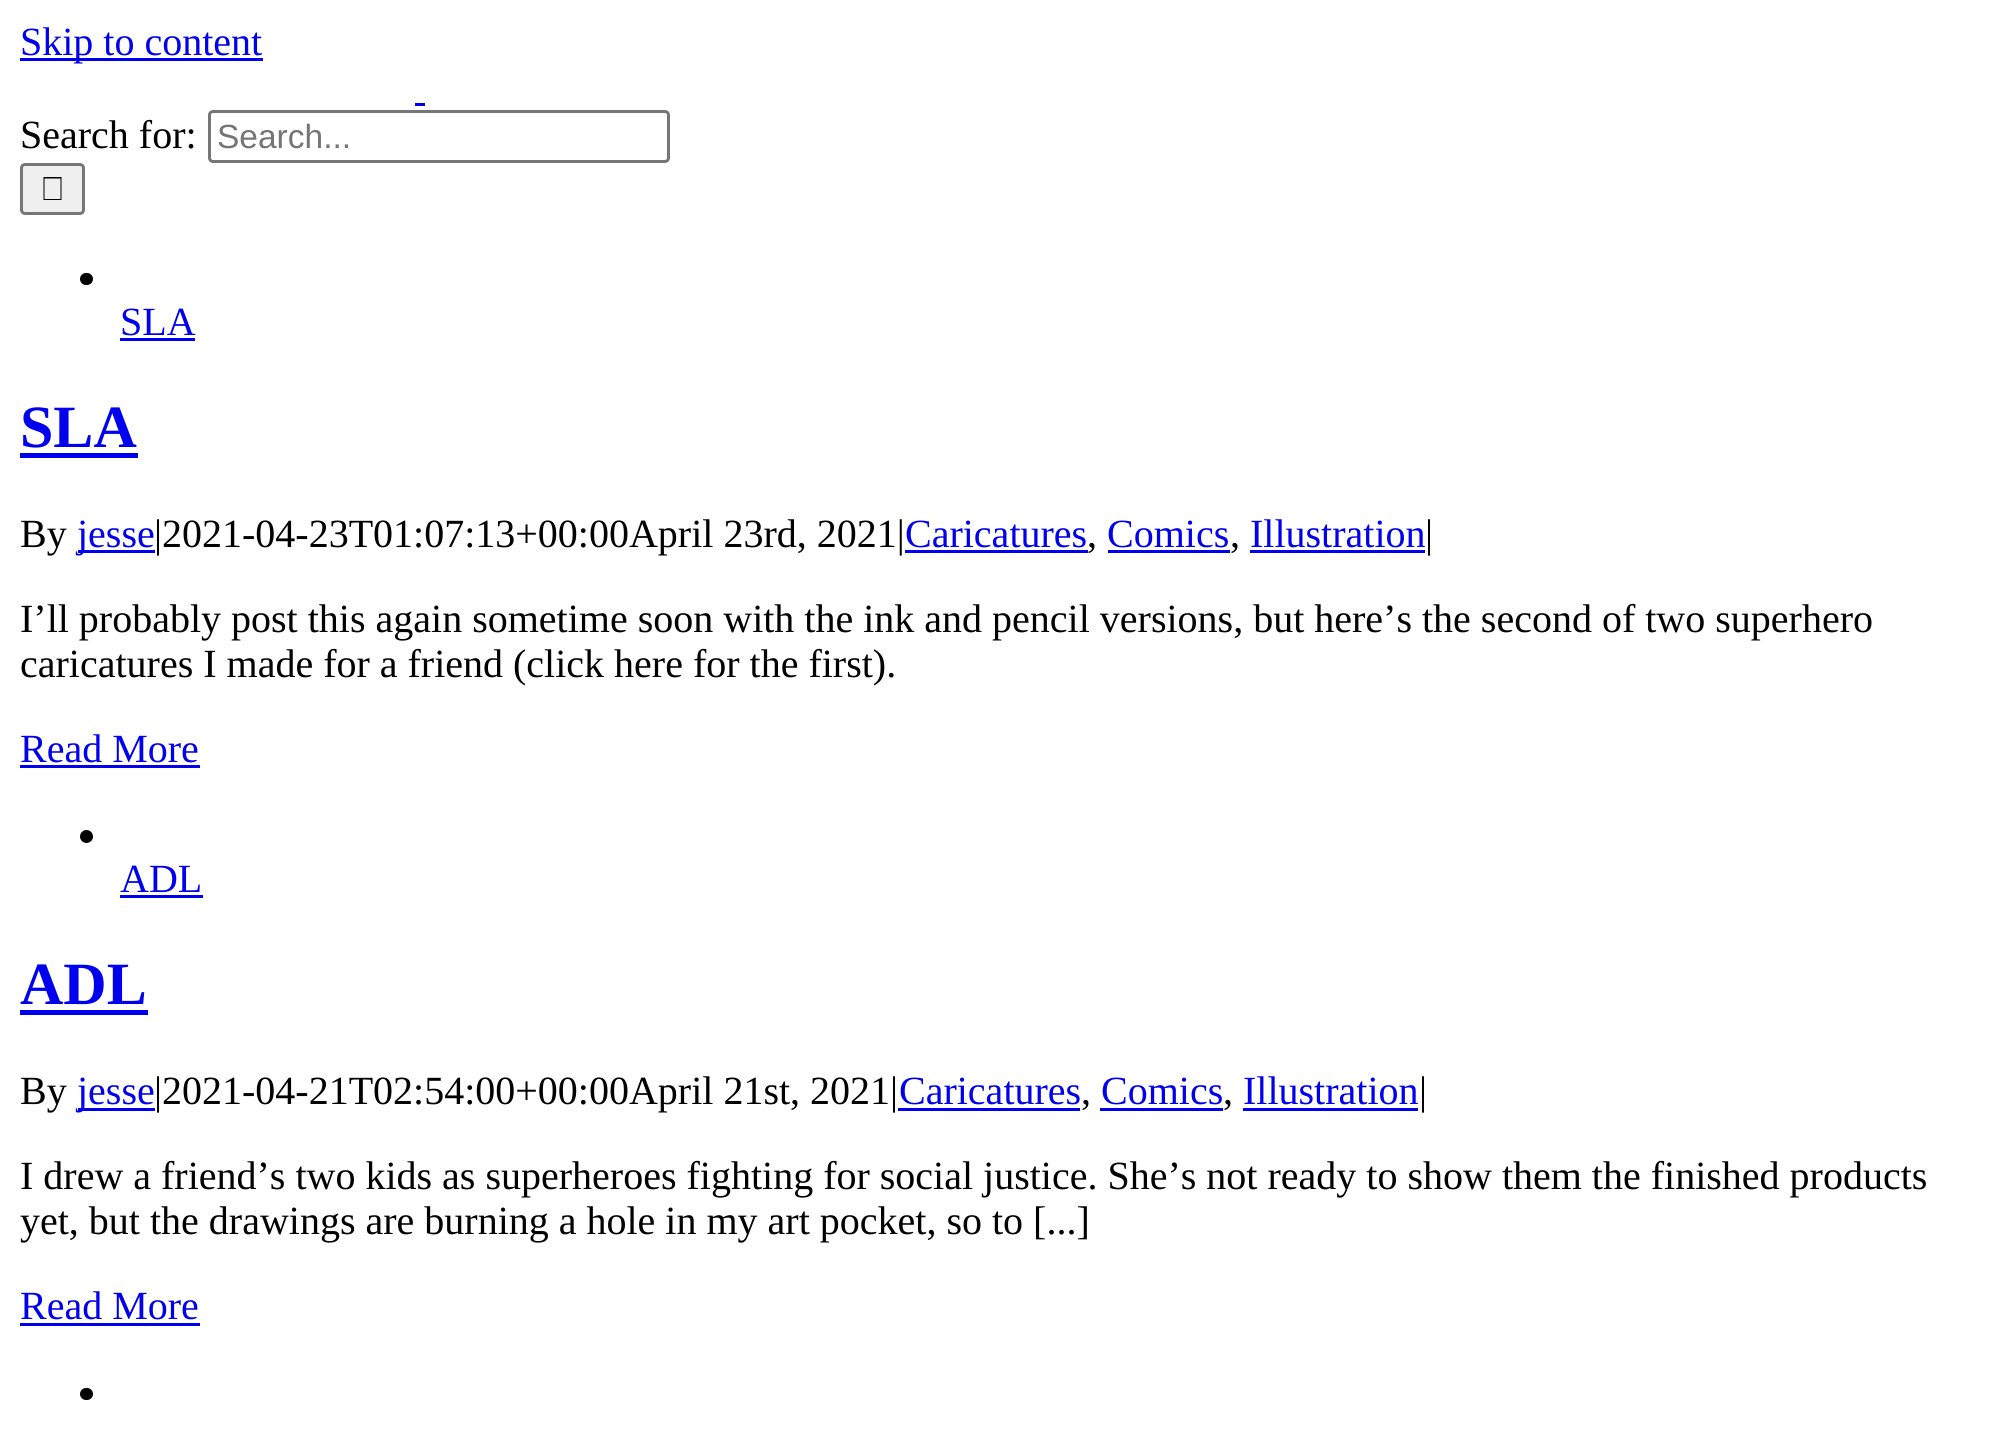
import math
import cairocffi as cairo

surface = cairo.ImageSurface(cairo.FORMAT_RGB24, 2004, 1432)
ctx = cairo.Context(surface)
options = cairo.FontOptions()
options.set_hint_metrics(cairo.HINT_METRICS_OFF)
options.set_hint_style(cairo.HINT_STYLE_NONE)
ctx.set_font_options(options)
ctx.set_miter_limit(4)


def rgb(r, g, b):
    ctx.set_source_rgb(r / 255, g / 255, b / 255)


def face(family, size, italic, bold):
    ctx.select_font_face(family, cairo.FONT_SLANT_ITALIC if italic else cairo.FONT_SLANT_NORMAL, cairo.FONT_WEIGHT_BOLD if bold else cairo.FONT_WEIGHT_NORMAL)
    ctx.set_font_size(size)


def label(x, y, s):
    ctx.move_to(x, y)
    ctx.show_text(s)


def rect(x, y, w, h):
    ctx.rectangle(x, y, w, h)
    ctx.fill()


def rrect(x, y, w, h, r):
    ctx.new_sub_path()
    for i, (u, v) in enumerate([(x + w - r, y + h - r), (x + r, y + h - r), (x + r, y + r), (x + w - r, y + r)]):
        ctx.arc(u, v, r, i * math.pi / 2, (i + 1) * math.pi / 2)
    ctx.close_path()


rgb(255, 255, 255)
ctx.paint()
rgb(0, 0, 238)
rect(20, 58, 243, 3)
face('Liberation Serif', 40, 0, 0)
label(20, 55, 'Skip to content')
rect(415, 103, 10, 3)
rgb(0, 0, 0)
label(20, 148, 'Search for:')
rrect(209.5, 111.5, 459, 50, 3.5)
rgb(118, 118, 118)
ctx.set_line_width(3)
ctx.stroke()
face('Liberation Sans', 33.5, 0, 0)
rgb(117, 117, 117)
label(217, 148, 'Search...')
rgb(239, 239, 239)
rrect(21.5, 164.5, 62, 49, 3.5)
ctx.fill_preserve()
rgb(118, 118, 118)
ctx.stroke()
rgb(0, 0, 0)
ctx.new_path()
ctx.move_to(43.5, 177)
ctx.line_to(61.5, 177)
ctx.line_to(61.5, 200)
ctx.line_to(43.5, 200)
ctx.close_path()
ctx.move_to(44.5, 178.5)
ctx.line_to(44.5, 199)
ctx.line_to(60.5, 199)
ctx.line_to(60.5, 178.5)
ctx.close_path()
ctx.fill()
rrect(80, 273, 13, 12, 6)
ctx.fill()
face('Liberation Serif', 40, 0, 0)
rgb(0, 0, 238)
label(120, 335, 'SLA')
rect(120, 338, 75, 3)
face('Liberation Serif', 60, 0, 1)
label(20, 447, 'SLA')
rect(20, 453, 118, 5)
face('Liberation Serif', 40, 0, 0)
rgb(0, 0, 0)
label(20, 547, 'By')
rgb(0, 0, 238)
rect(78, 550, 77, 3)
label(77, 547, 'jesse')
rgb(0, 0, 0)
label(154, 547, '|2021-04-23T01:07:13+00:00April 23rd, 2021|')
rgb(0, 0, 238)
label(905, 547, 'Caricatures')
rect(905, 550, 183, 3)
rgb(0, 0, 0)
label(1087, 547, ',')
rgb(0, 0, 238)
label(1107, 547, 'Comics')
rect(1108, 550, 122, 3)
rgb(0, 0, 0)
label(1230, 547, ',')
rgb(0, 0, 238)
label(1250, 547, 'Illustration')
rect(1250, 550, 175, 3)
rgb(0, 0, 0)
label(1425, 547, '|')
label(20, 632, 'I’ll probably post this again sometime soon with the ink and pencil versions, but here’s the second of two superhero')
label(20, 677, 'caricatures I made for a friend (click here for the first).')
rgb(0, 0, 238)
label(20, 762, 'Read More')
rect(20, 765, 180, 3)
rgb(0, 0, 0)
ctx.new_path()
ctx.arc(86.5, 836.5, 6.5, 0, 2 * math.pi)
ctx.fill()
rgb(0, 0, 238)
label(120, 892, 'ADL')
rect(120, 895, 83, 3)
face('Liberation Serif', 60, 0, 1)
label(20, 1004, 'ADL')
rect(20, 1010, 128, 5)
face('Liberation Serif', 40, 0, 0)
rgb(0, 0, 0)
label(20, 1104, 'By')
rgb(0, 0, 238)
rect(78, 1108, 77, 3)
label(77, 1104, 'jesse')
rgb(0, 0, 0)
label(154, 1104, '|2021-04-21T02:54:00+00:00April 21st, 2021|')
rgb(0, 0, 238)
label(899, 1104, 'Caricatures')
rect(898, 1108, 182, 3)
rgb(0, 0, 0)
label(1081, 1104, ',')
rgb(0, 0, 238)
label(1101, 1104, 'Comics')
rect(1100, 1108, 123, 3)
rgb(0, 0, 0)
label(1223, 1104, ',')
rgb(0, 0, 238)
label(1243, 1104, 'Illustration')
rect(1243, 1108, 175, 3)
rgb(0, 0, 0)
label(1419, 1104, '|')
label(20, 1189, 'I drew a friend’s two kids as superheroes fighting for social justice. She’s not ready to show them the finished products')
label(20, 1234, 'yet, but the drawings are burning a hole in my art pocket, so to [...]')
rgb(0, 0, 238)
label(20, 1319, 'Read More')
rect(20, 1323, 180, 3)
rgb(0, 0, 0)
rrect(80, 1388, 13, 12, 6)
ctx.fill()
surface.write_to_png('render.png')
